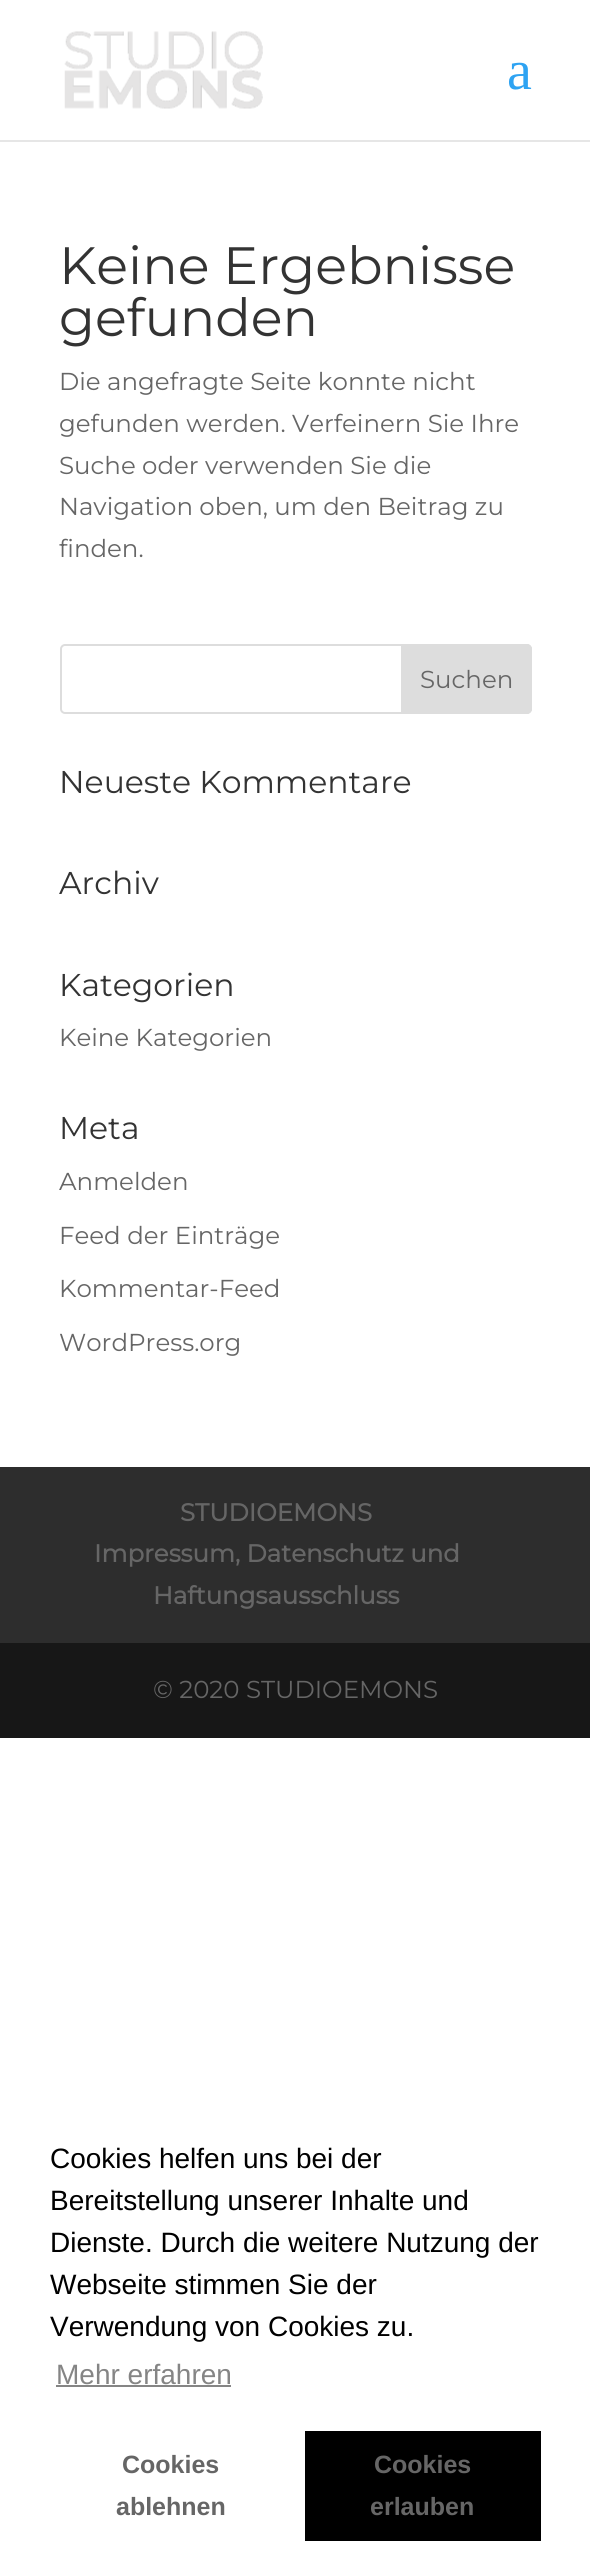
import math
import cairocffi as cairo

surface = cairo.ImageSurface(cairo.FORMAT_RGB24, 590, 2568)
ctx = cairo.Context(surface)
options = cairo.FontOptions()
options.set_hint_metrics(cairo.HINT_METRICS_OFF)
options.set_hint_style(cairo.HINT_STYLE_NONE)
ctx.set_font_options(options)
ctx.set_miter_limit(4)


def rgb(r, g, b):
    ctx.set_source_rgb(r / 255, g / 255, b / 255)


def face(family, size, italic, bold):
    ctx.select_font_face(family, cairo.FONT_SLANT_ITALIC if italic else cairo.FONT_SLANT_NORMAL, cairo.FONT_WEIGHT_BOLD if bold else cairo.FONT_WEIGHT_NORMAL)
    ctx.set_font_size(size)


def label(x, y, s):
    ctx.move_to(x, y)
    ctx.show_text(s)


def rect(x, y, w, h):
    ctx.rectangle(x, y, w, h)
    ctx.fill()


def rrect(x, y, w, h, r):
    ctx.new_sub_path()
    for i, (u, v) in enumerate([(x + w - r, y + h - r), (x + r, y + h - r), (x + r, y + r), (x + w - r, y + r)]):
        ctx.arc(u, v, r, i * math.pi / 2, (i + 1) * math.pi / 2)
    ctx.close_path()


def image(path, x, y, w, h):
    ctx.save()
    ctx.set_source_surface(cairo.ImageSurface.create_from_png(path), x, y)
    ctx.rectangle(x, y, w, h)
    ctx.fill()
    ctx.restore()


rgb(255, 255, 255)
ctx.paint()
rgb(230, 230, 230)
ctx.new_path()
ctx.move_to(0, 140)
ctx.line_to(0, 142)
ctx.line_to(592, 142)
ctx.line_to(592, 2)
ctx.line_to(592, 140)
ctx.close_path()
ctx.fill()
image('image0.png', 64, 31, 199, 78)
face('Liberation Serif', 56, 0, 0)
rgb(46, 163, 242)
label(507, 89, 'a')
face('Montserrat Thin', 52.5, 0, 0)
rgb(51, 51, 51)
label(59, 284, 'Keine Ergebnisse')
label(59, 336, 'gefunden')
face('Montserrat Thin', 24.5, 0, 0)
rgb(102, 102, 102)
label(59, 390, 'Die angefragte Seite konnte nicht')
label(59, 432, 'gefunden werden. Verfeinern Sie Ihre')
label(59, 474, 'Suche oder verwenden Sie die')
label(59, 515, 'Navigation oben, um den Beitrag zu')
label(59, 557, 'finden.')
rrect(61, 645, 470, 68, 4)
rgb(221, 221, 221)
ctx.stroke()
ctx.new_path()
ctx.move_to(402, 645)
ctx.line_to(527, 645)
ctx.curve_to(529, 645, 531, 647, 531, 649)
ctx.line_to(531, 709)
ctx.curve_to(531, 711, 529, 713, 527, 713)
ctx.line_to(402, 713)
ctx.close_path()
ctx.fill_preserve()
ctx.stroke()
rgb(102, 102, 102)
label(420, 688, 'Suchen')
face('Montserrat Thin', 31.5, 0, 0)
rgb(51, 51, 51)
label(59, 793, 'Neueste Kommentare')
label(59, 894, 'Archiv')
label(59, 996, 'Kategorien')
face('Montserrat Thin', 24.5, 0, 0)
rgb(102, 102, 102)
label(59, 1046, 'Keine Kategorien')
face('Montserrat Thin', 31.5, 0, 0)
rgb(51, 51, 51)
label(59, 1139, 'Meta')
face('Montserrat Thin', 24.5, 0, 0)
rgb(102, 102, 102)
label(59, 1190, 'Anmelden')
label(59, 1244, 'Feed der Einträge')
label(59, 1297, 'Kommentar-Feed')
label(59, 1351, 'WordPress.org')
rgb(45, 45, 45)
rect(0, 1467, 590, 176)
face('Montserrat', 24.5, 0, 1)
rgb(102, 102, 102)
label(180, 1521, 'STUDIOEMONS')
label(94, 1562, 'Impressum, Datenschutz und')
label(153, 1604, 'Haftungsausschluss')
rgb(23, 23, 23)
rect(0, 1643, 590, 95)
face('Montserrat Thin', 24.5, 0, 0)
rgb(102, 102, 102)
label(153, 1698, '© 2020 STUDIOEMONS')
face('Liberation Sans', 28, 0, 0)
rgb(0, 0, 0)
label(50, 2168, 'Cookies helfen uns bei der')
label(50, 2210, 'Bereitstellung unserer Inhalte und')
label(50, 2252, 'Dienste. Durch die weitere Nutzung der')
label(50, 2294, 'Webseite stimmen Sie der')
label(50, 2336, 'Verwendung von Cookies zu.')
rgb(133, 133, 133)
label(56, 2384, 'Mehr erfahren')
rect(56, 2385, 175, 2)
face('Liberation Sans', 25, 0, 1)
rgb(102, 102, 102)
label(122, 2473, 'Cookies')
label(116, 2515, 'ablehnen')
rgb(0, 0, 0)
rect(305, 2431, 236, 110)
rgb(102, 102, 102)
label(374, 2473, 'Cookies')
label(370, 2515, 'erlauben')
surface.write_to_png('render.png')
